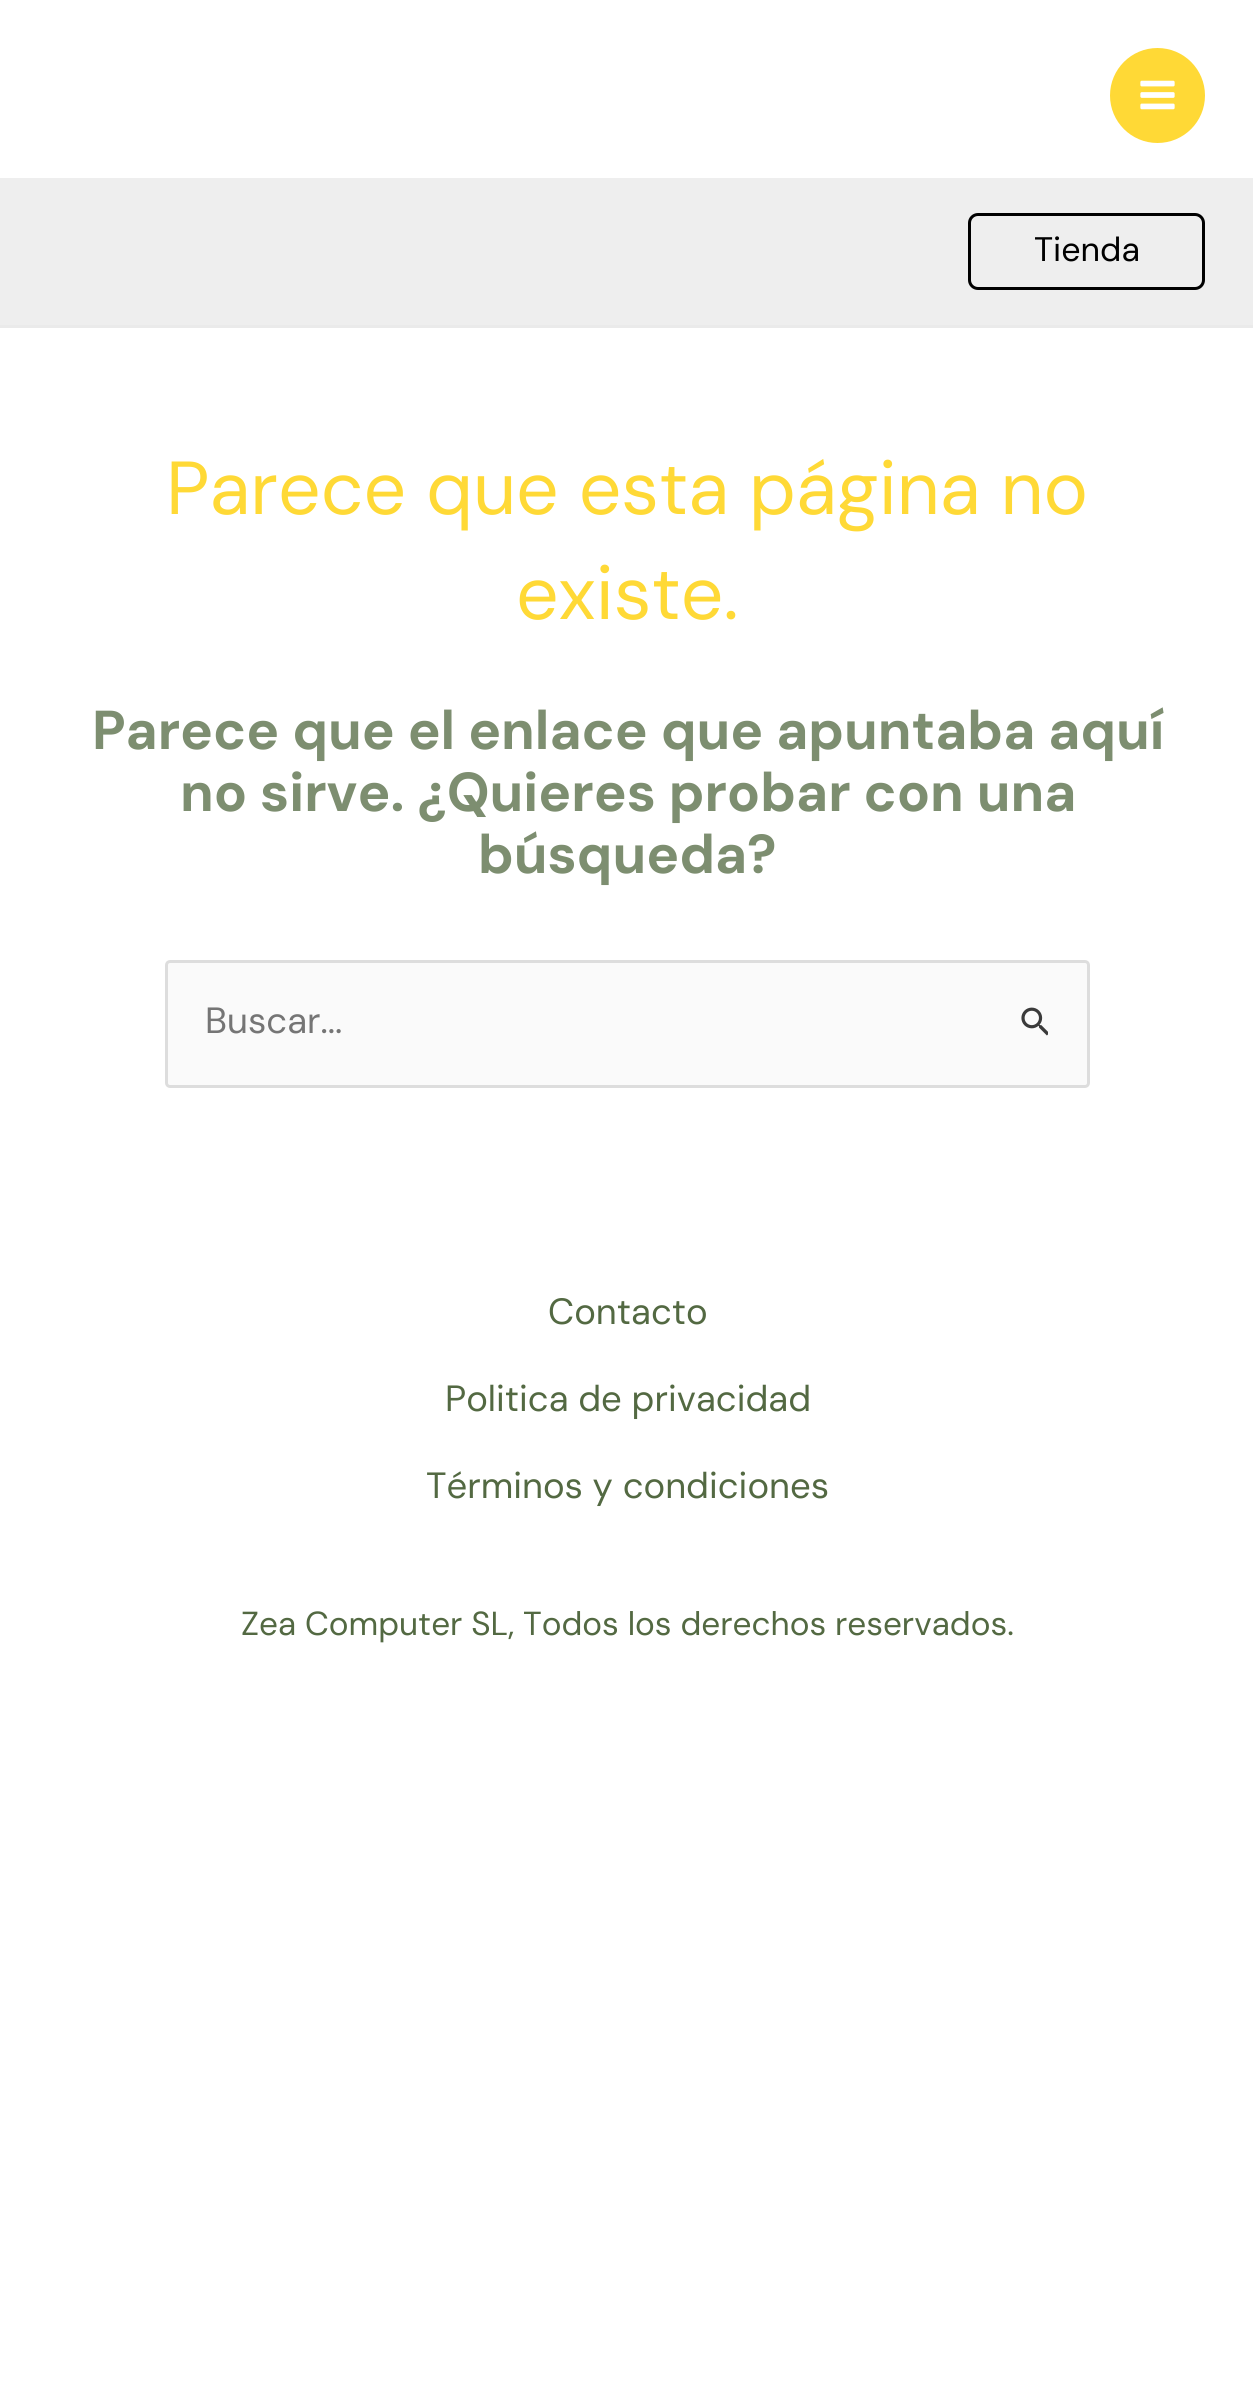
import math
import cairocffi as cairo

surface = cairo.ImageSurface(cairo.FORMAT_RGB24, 1253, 2387)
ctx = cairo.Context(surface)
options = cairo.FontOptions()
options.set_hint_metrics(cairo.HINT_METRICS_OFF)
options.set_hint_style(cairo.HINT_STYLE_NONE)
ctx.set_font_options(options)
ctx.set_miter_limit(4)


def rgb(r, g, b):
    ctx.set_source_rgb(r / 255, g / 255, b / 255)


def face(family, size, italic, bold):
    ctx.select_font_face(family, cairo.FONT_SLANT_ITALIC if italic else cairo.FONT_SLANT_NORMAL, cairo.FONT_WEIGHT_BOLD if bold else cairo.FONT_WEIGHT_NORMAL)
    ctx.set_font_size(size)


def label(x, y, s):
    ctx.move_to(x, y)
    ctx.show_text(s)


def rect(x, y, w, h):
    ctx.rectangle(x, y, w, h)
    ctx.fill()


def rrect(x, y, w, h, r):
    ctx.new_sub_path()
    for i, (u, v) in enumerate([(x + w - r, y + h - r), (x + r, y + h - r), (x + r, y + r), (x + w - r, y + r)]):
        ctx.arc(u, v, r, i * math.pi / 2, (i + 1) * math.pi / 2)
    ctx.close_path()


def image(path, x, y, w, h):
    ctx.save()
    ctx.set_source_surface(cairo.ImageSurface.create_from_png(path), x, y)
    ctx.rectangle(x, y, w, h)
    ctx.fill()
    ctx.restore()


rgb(255, 255, 255)
ctx.paint()
rgb(255, 217, 54)
ctx.arc(1157.5, 95.5, 47.5, 0, 2 * math.pi)
ctx.fill()
image('image0.png', 1140, 80, 35, 30)
rgb(238, 238, 238)
rect(0, 178, 1253, 147)
rgb(234, 234, 234)
rect(0, 325, 1253, 3)
rrect(969.5, 214.5, 234, 74, 8.5)
rgb(0, 0, 0)
ctx.set_line_width(3)
ctx.stroke()
face('DM Sans', 34, 0, 0)
label(1034, 261, 'Tienda')
face('DM Sans', 75, 0, 0)
rgb(255, 217, 54)
label(166, 514, 'Parece que esta página no')
label(516, 619, 'existe.')
face('DM Sans', 54.75, 0, 1)
rgb(125, 142, 112)
label(92, 749, 'Parece que el enlace que apuntaba aquí')
label(180, 811, 'no sirve. ¿Quieres probar con una')
label(478, 873, 'búsqueda?')
rgb(250, 250, 250)
rrect(166.5, 961.5, 922, 125, 3.5)
ctx.fill_preserve()
rgb(221, 221, 221)
ctx.stroke()
face('DM Sans', 36.5, 0, 0)
rgb(117, 117, 117)
label(205, 1033, 'Buscar...')
image('image1.png', 1021, 1007, 27, 29)
rgb(83, 105, 66)
label(548, 1324, 'Contacto')
label(445, 1411, 'Politica de privacidad')
label(426, 1498, 'Términos y condiciones')
face('DM Sans', 33.3, 0, 0)
label(241, 1635, 'Zea Computer SL, Todos los derechos reservados.')
surface.write_to_png('render.png')
